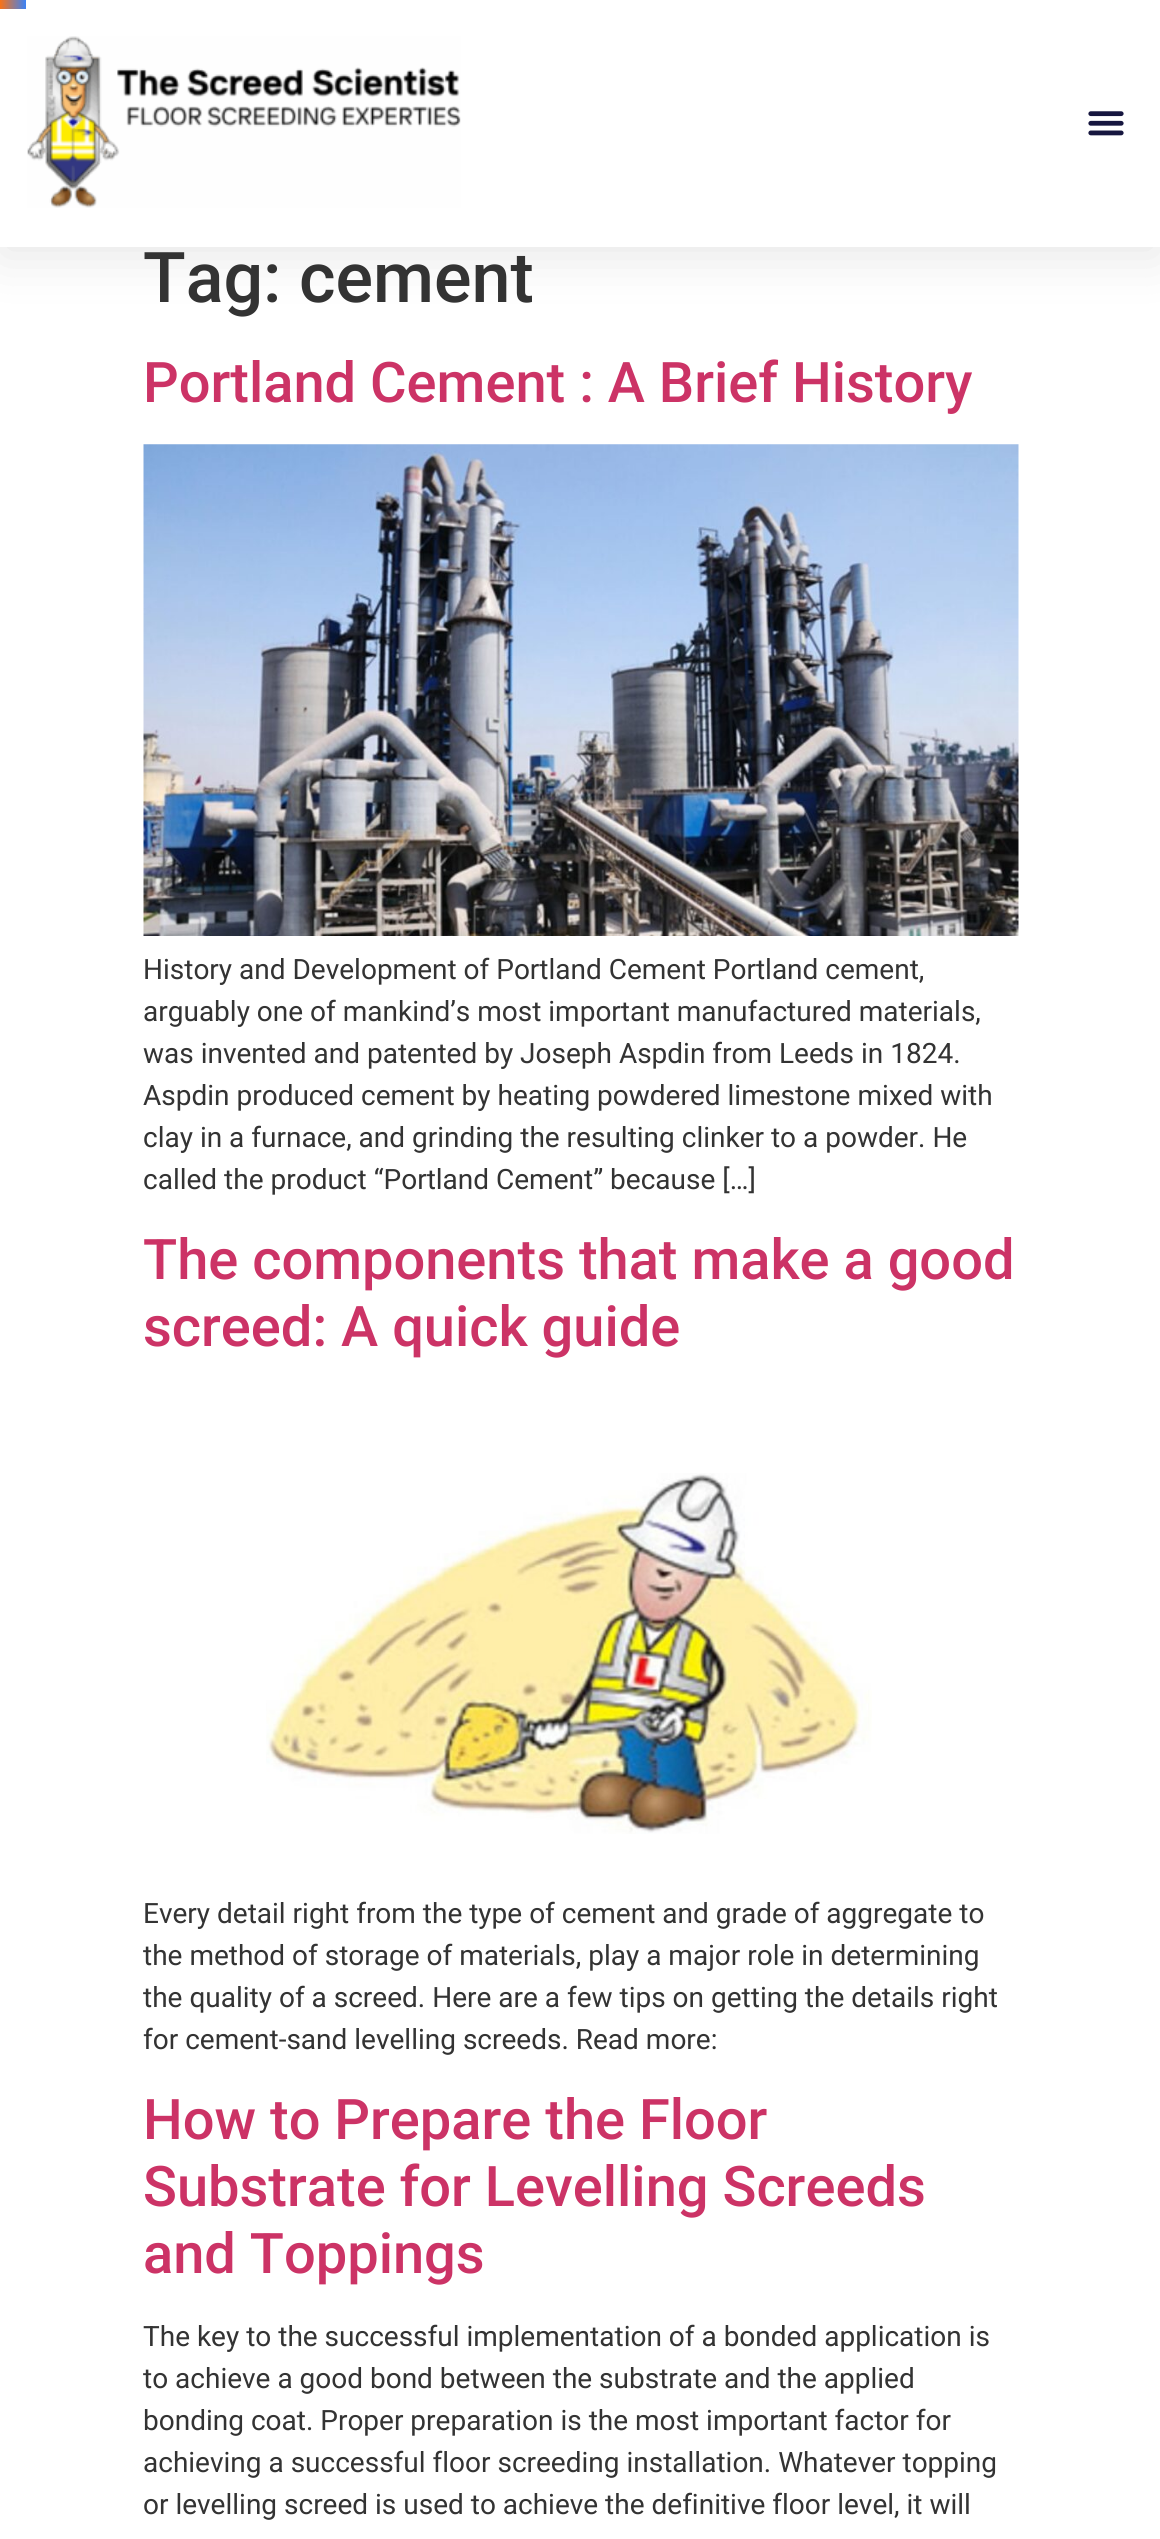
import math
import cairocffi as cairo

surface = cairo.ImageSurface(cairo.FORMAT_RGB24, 1160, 2539)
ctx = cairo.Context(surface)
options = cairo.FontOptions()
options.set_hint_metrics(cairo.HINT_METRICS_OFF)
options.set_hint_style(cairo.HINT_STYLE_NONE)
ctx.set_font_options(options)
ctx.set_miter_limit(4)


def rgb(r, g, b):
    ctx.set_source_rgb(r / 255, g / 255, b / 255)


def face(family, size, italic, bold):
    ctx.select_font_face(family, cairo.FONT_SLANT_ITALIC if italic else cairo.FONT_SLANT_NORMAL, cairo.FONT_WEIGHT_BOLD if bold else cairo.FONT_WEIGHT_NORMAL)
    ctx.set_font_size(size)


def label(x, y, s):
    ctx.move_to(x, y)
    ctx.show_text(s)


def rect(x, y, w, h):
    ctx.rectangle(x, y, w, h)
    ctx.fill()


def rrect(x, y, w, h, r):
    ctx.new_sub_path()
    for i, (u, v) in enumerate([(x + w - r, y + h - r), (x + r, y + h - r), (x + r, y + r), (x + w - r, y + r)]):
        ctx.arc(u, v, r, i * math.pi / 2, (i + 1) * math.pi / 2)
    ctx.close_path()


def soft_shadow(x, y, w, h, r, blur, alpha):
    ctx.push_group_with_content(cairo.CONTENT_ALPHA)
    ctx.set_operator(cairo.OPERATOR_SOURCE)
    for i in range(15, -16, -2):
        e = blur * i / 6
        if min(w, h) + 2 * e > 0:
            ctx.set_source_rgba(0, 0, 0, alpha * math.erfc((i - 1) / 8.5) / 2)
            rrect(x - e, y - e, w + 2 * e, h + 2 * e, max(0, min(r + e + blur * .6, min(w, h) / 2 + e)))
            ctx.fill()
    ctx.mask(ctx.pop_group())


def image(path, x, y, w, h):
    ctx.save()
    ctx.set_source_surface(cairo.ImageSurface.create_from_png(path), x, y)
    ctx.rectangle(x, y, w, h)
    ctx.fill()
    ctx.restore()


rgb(255, 255, 255)
ctx.paint()
rgb(0, 0, 0)
soft_shadow(0, 9, 1160, 247, 0, 26, 0.1)
rgb(255, 255, 255)
rect(0, 0, 1160, 247)
image('image0.png', 27, 36, 434, 172)
image('image1.png', 1088, 111, 36, 25)
gradient = cairo.LinearGradient(0, 4.4, 26, 4.4)
gradient.add_color_stop_rgba(0, 0.976, 0.451, 0.086, 1)
gradient.add_color_stop_rgba(1, 0.231, 0.51, 0.965, 1)
ctx.set_source(gradient)
rect(0, 0, 26, 9)
face('Roboto Medium', 70, 0, 0)
rgb(51, 51, 51)
label(143, 302, 'Tag: cement')
face('Roboto Medium', 56, 0, 0)
rgb(204, 51, 102)
label(143, 402, 'Portland Cement : A Brief History')
image('image2.png', 143, 444, 876, 492)
face('Roboto', 28, 0, 0)
rgb(51, 51, 51)
label(143, 979, 'History and Development of Portland Cement Portland cement,')
label(143, 1021, 'arguably one of mankind’s most important manufactured materials,')
label(143, 1063, 'was invented and patented by Joseph Aspdin from Leeds in 1824.')
label(143, 1105, 'Aspdin produced cement by heating powdered limestone mixed with')
label(143, 1147, 'clay in a furnace, and grinding the resulting clinker to a powder. He')
label(143, 1189, 'called the product “Portland Cement” because […]')
face('Roboto Medium', 56, 0, 0)
rgb(204, 51, 102)
label(143, 1279, 'The components that make a good')
label(143, 1346, 'screed: A quick guide')
image('image3.png', 266, 1473, 606, 361)
face('Roboto', 28, 0, 0)
rgb(51, 51, 51)
label(143, 1923, 'Every detail right from the type of cement and grade of aggregate to')
label(143, 1965, 'the method of storage of materials, play a major role in determining')
label(143, 2007, 'the quality of a screed. Here are a few tips on getting the details right')
label(143, 2049, 'for cement-sand levelling screeds. Read more:')
face('Roboto Medium', 56, 0, 0)
rgb(204, 51, 102)
label(143, 2139, 'How to Prepare the Floor')
label(143, 2206, 'Substrate for Levelling Screeds')
label(143, 2273, 'and Toppings')
face('Roboto', 28, 0, 0)
rgb(51, 51, 51)
label(143, 2346, 'The key to the successful implementation of a bonded application is')
label(143, 2388, 'to achieve a good bond between the substrate and the applied')
label(143, 2430, 'bonding coat. Proper preparation is the most important factor for')
label(143, 2472, 'achieving a successful floor screeding installation. Whatever topping')
label(143, 2514, 'or levelling screed is used to achieve the definitive floor level, it will')
surface.write_to_png('render.png')
